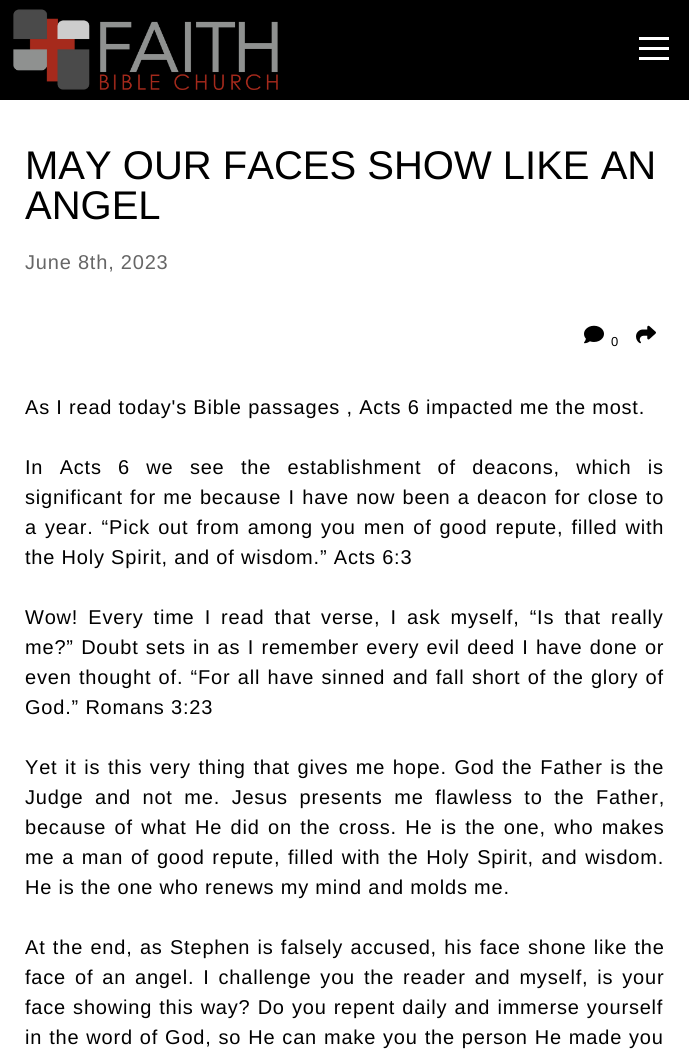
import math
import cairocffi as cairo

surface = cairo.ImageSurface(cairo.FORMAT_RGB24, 689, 1055)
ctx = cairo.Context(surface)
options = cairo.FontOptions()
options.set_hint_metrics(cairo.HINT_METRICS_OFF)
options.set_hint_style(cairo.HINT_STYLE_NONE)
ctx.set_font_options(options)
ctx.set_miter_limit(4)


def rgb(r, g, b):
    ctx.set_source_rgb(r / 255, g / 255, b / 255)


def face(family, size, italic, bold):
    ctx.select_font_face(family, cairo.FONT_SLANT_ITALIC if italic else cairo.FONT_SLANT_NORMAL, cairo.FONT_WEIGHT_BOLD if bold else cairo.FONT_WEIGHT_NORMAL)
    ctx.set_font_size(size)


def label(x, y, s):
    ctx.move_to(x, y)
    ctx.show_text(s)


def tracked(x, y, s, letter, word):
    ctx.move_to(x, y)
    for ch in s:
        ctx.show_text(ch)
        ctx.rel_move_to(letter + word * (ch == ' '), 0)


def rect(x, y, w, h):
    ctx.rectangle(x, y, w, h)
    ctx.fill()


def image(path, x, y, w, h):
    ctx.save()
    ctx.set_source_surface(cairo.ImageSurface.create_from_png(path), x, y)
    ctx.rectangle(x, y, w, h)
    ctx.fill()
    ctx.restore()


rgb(255, 255, 255)
ctx.paint()
rgb(0, 0, 0)
rect(0, 0, 689, 100)
image('image0.png', 13, 9, 265, 81)
rgb(255, 255, 255)
rect(639, 37, 30, 3)
rect(639, 47, 30, 3)
rect(639, 57, 30, 3)
face('Liberation Sans', 40, 0, 0)
rgb(0, 0, 0)
label(25, 179, 'MAY OUR FACES SHOW LIKE AN')
label(25, 219, 'ANGEL')
face('Liberation Sans', 20, 0, 0)
rgb(102, 102, 102)
tracked(25, 269, 'June 8th, 2023', 0.8, 0)
image('image1.png', 584, 325, 20, 19)
face('Liberation Sans', 13, 0, 0)
rgb(0, 0, 0)
tracked(611, 346, '0', 0.8, 0)
image('image2.png', 636, 325, 20, 19)
face('Liberation Sans', 20, 0, 0)
tracked(25, 414, 'As I read today\'s Bible passages , Acts 6 impacted me the most.', 0.8, 0)
tracked(25, 474, 'In Acts 6 we see the establishment of deacons, which is', 0.8, 10)
tracked(25, 504, 'significant for me because I have now been a deacon for close to', 0.8, 1)
tracked(25, 534, 'a year. “Pick out from among you men of good repute, filled with', 0.8, 1.75)
tracked(25, 564, 'the Holy Spirit, and of wisdom.” Acts 6:3', 0.8, 0)
tracked(25, 624, 'Wow! Every time I read that verse, I ask myself, “Is that really', 0.8, 3.75)
tracked(25, 654, 'me?” Doubt sets in as I remember every evil deed I have done or', 0.8, 1)
tracked(25, 684, 'even thought of. “For all have sinned and fall short of the glory of', 0.8, 1)
tracked(25, 714, 'God.” Romans 3:23', 0.8, 0)
tracked(25, 774, 'Yet it is this very thing that gives me hope. God the Father is the', 0.8, 1.25)
tracked(25, 804, 'Judge and not me. Jesus presents me flawless to the Father,', 0.8, 5.25)
tracked(25, 834, 'because of what He did on the cross. He is the one, who makes', 0.8, 2)
tracked(25, 864, 'me a man of good repute, filled with the Holy Spirit, and wisdom.', 0.8, 1.4)
tracked(25, 894, 'He is the one who renews my mind and molds me.', 0.8, 0)
tracked(25, 954, 'At the end, as Stephen is falsely accused, his face shone like the', 0.8, 1)
tracked(25, 984, 'face of an angel. I challenge you the reader and myself, is your', 0.8, 2.6)
tracked(25, 1014, 'face showing this way? Do you repent daily and immerse yourself', 0.8, 0.75)
tracked(25, 1044, 'in the word of God, so He can make you the person He made you', 0.8, 0.6)
surface.write_to_png('render.png')
